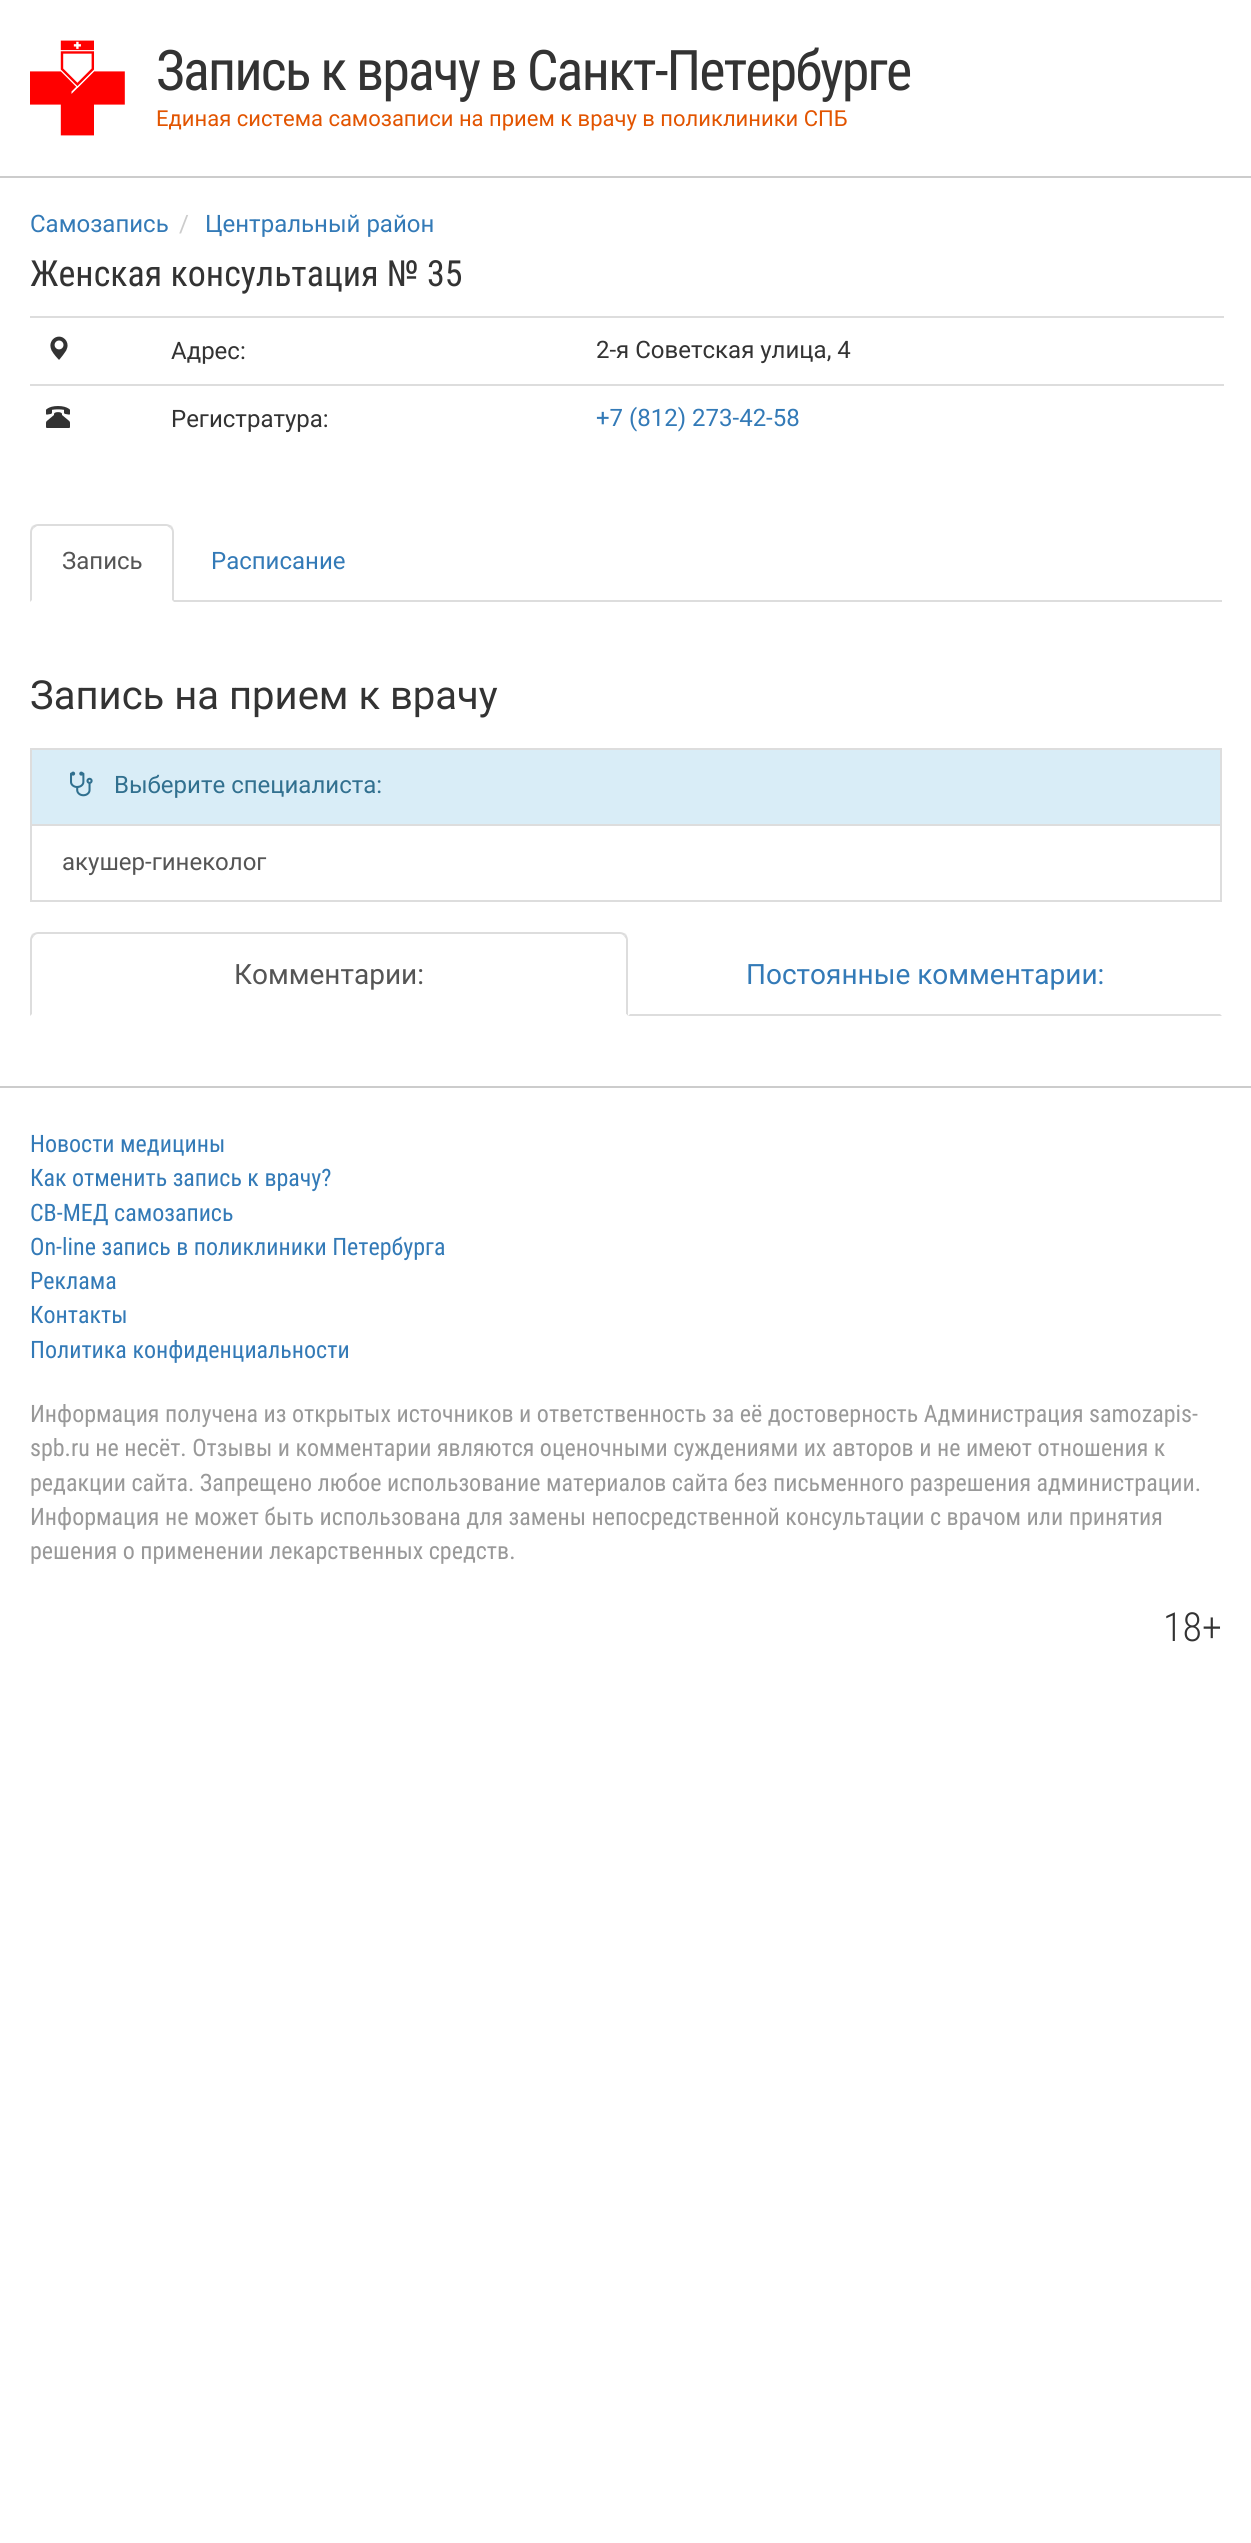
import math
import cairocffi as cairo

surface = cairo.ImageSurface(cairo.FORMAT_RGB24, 1251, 2543)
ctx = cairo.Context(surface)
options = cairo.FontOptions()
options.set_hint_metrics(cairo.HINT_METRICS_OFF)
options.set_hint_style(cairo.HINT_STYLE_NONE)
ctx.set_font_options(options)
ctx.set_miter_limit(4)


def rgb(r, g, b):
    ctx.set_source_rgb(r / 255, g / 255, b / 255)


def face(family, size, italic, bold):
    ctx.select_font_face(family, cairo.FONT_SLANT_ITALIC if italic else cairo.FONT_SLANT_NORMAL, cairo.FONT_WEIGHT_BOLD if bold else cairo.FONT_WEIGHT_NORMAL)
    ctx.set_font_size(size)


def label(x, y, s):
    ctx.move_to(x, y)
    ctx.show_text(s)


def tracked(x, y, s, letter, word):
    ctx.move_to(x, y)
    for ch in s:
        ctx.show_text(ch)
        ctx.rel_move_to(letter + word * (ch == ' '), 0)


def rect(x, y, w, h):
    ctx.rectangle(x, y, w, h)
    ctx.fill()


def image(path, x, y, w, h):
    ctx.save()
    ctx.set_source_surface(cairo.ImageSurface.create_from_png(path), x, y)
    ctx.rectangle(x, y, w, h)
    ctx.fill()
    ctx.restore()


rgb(255, 255, 255)
ctx.paint()
image('image0.png', 30, 40, 95, 96)
face('Roboto Condensed', 56, 0, 0)
rgb(51, 51, 51)
tracked(156, 90, 'Запись к врачу в Санкт-Петербурге', -2, 0)
face('Roboto', 22, 0, 0)
rgb(226, 84, 0)
label(156, 126, 'Единая система самозаписи на прием к врачу в поликлиники СПБ')
rgb(204, 204, 204)
rect(0, 176, 1251, 2)
face('Roboto', 24, 0, 0)
rgb(51, 122, 183)
label(30, 232, 'Самозапись')
rgb(204, 204, 204)
label(179, 232, '/')
rgb(51, 122, 183)
label(205, 232, 'Центральный район')
face('Roboto Condensed', 36, 0, 0)
rgb(51, 51, 51)
label(30, 286, 'Женская консультация № 35')
image('image1.png', 50, 336, 18, 24)
rgb(221, 221, 221)
rect(30, 316, 1194, 2)
face('Roboto', 24, 0, 0)
rgb(51, 51, 51)
label(171, 359, 'Адрес:')
label(596, 358, '2-я Советская улица, 4')
image('image2.png', 46, 406, 24, 22)
rgb(221, 221, 221)
rect(30, 384, 1194, 2)
rgb(51, 51, 51)
label(171, 427, 'Регистратура:')
rgb(51, 122, 183)
label(596, 426, '+7 (812) 273-42-58')
rgb(221, 221, 221)
rect(174, 600, 1048, 2)
ctx.new_path()
ctx.move_to(38, 524)
ctx.curve_to(36, 524, 34, 525, 32, 526)
ctx.line_to(34, 528)
ctx.line_to(37, 526)
ctx.line_to(167, 526)
ctx.line_to(170, 528)
ctx.line_to(172, 526)
ctx.curve_to(170, 525, 168, 524, 166, 524)
ctx.close_path()
ctx.fill()
ctx.new_path()
ctx.move_to(174, 602)
ctx.line_to(174, 532)
ctx.curve_to(174, 530, 173, 528, 172, 526)
ctx.line_to(170, 528)
ctx.curve_to(171, 529, 172, 530, 172, 532)
ctx.line_to(172, 600)
ctx.close_path()
ctx.fill()
ctx.new_path()
ctx.move_to(30, 602)
ctx.line_to(32, 600)
ctx.line_to(32, 532)
ctx.curve_to(32, 530, 33, 529, 34, 528)
ctx.line_to(32, 526)
ctx.curve_to(31, 528, 30, 530, 30, 532)
ctx.close_path()
ctx.fill()
rgb(85, 85, 85)
label(62, 569, 'Запись')
rgb(51, 122, 183)
label(211, 569, 'Расписание')
face('Roboto', 40, 0, 0)
rgb(51, 51, 51)
label(30, 709, 'Запись на прием к врачу')
rgb(217, 237, 247)
ctx.rectangle(31, 749, 1190, 76)
ctx.fill_preserve()
rgb(221, 221, 221)
ctx.stroke()
image('image3.png', 70, 771, 23, 26)
face('Roboto', 24, 0, 0)
rgb(49, 112, 143)
label(114, 793, 'Выберите специалиста:')
ctx.rectangle(31, 825, 1190, 76)
rgb(221, 221, 221)
ctx.stroke()
rgb(85, 85, 85)
label(62, 870, 'акушер-гинеколог')
rgb(221, 221, 221)
ctx.new_path()
ctx.move_to(38, 932)
ctx.curve_to(36, 932, 34, 933, 32, 934)
ctx.line_to(34, 936)
ctx.curve_to(35, 935, 36, 934, 38, 934)
ctx.line_to(620, 934)
ctx.curve_to(622, 934, 623, 935, 624, 936)
ctx.line_to(626, 934)
ctx.curve_to(624, 933, 622, 932, 620, 932)
ctx.close_path()
ctx.fill()
ctx.new_path()
ctx.move_to(628, 1016)
ctx.line_to(628, 940)
ctx.curve_to(628, 938, 627, 936, 626, 934)
ctx.line_to(624, 936)
ctx.line_to(626, 939)
ctx.line_to(626, 1014)
ctx.close_path()
ctx.fill()
rgb(255, 255, 255)
ctx.new_path()
ctx.move_to(628, 1016)
ctx.line_to(626, 1014)
ctx.line_to(32, 1014)
ctx.line_to(30, 1016)
ctx.close_path()
ctx.fill()
rgb(221, 221, 221)
ctx.new_path()
ctx.move_to(30, 1016)
ctx.line_to(32, 1014)
ctx.line_to(32, 939)
ctx.line_to(34, 936)
ctx.line_to(32, 934)
ctx.curve_to(31, 936, 30, 938, 30, 940)
ctx.close_path()
ctx.fill()
face('Roboto', 28, 0, 0)
rgb(85, 85, 85)
label(234, 984, 'Комментарии:')
rgb(221, 221, 221)
ctx.new_path()
ctx.move_to(1222, 1016)
ctx.line_to(1220, 1014)
ctx.line_to(630, 1014)
ctx.line_to(628, 1016)
ctx.close_path()
ctx.fill()
rgb(51, 122, 183)
label(746, 984, 'Постоянные комментарии:')
rgb(204, 204, 204)
rect(0, 1086, 1251, 2)
face('Roboto Condensed', 24, 0, 0)
rgb(51, 122, 183)
label(30, 1152, 'Новости медицины')
label(30, 1186, 'Как отменить запись к врачу?')
label(30, 1221, 'СВ-МЕД самозапись')
label(30, 1255, 'On-line запись в поликлиники Петербурга')
label(30, 1289, 'Реклама')
label(30, 1323, 'Контакты')
label(30, 1358, 'Политика конфиденциальности')
rgb(153, 153, 153)
label(30, 1422, 'Информация получена из открытых источников и ответственность за её достоверность Администрация samozapis-')
label(30, 1456, 'spb.ru не несёт. Отзывы и комментарии являются оценочными суждениями их авторов и не имеют отношения к')
label(30, 1491, 'редакции сайта. Запрещено любое использование материалов сайта без письменного разрешения администрации.')
label(30, 1525, 'Информация не может быть использована для замены непосредственной консультации с врачом или принятия')
label(30, 1559, 'решения о применении лекарственных средств.')
face('Roboto Condensed Light', 40, 0, 0)
rgb(51, 51, 51)
label(1163, 1641, '18+')
surface.write_to_png('render.png')
